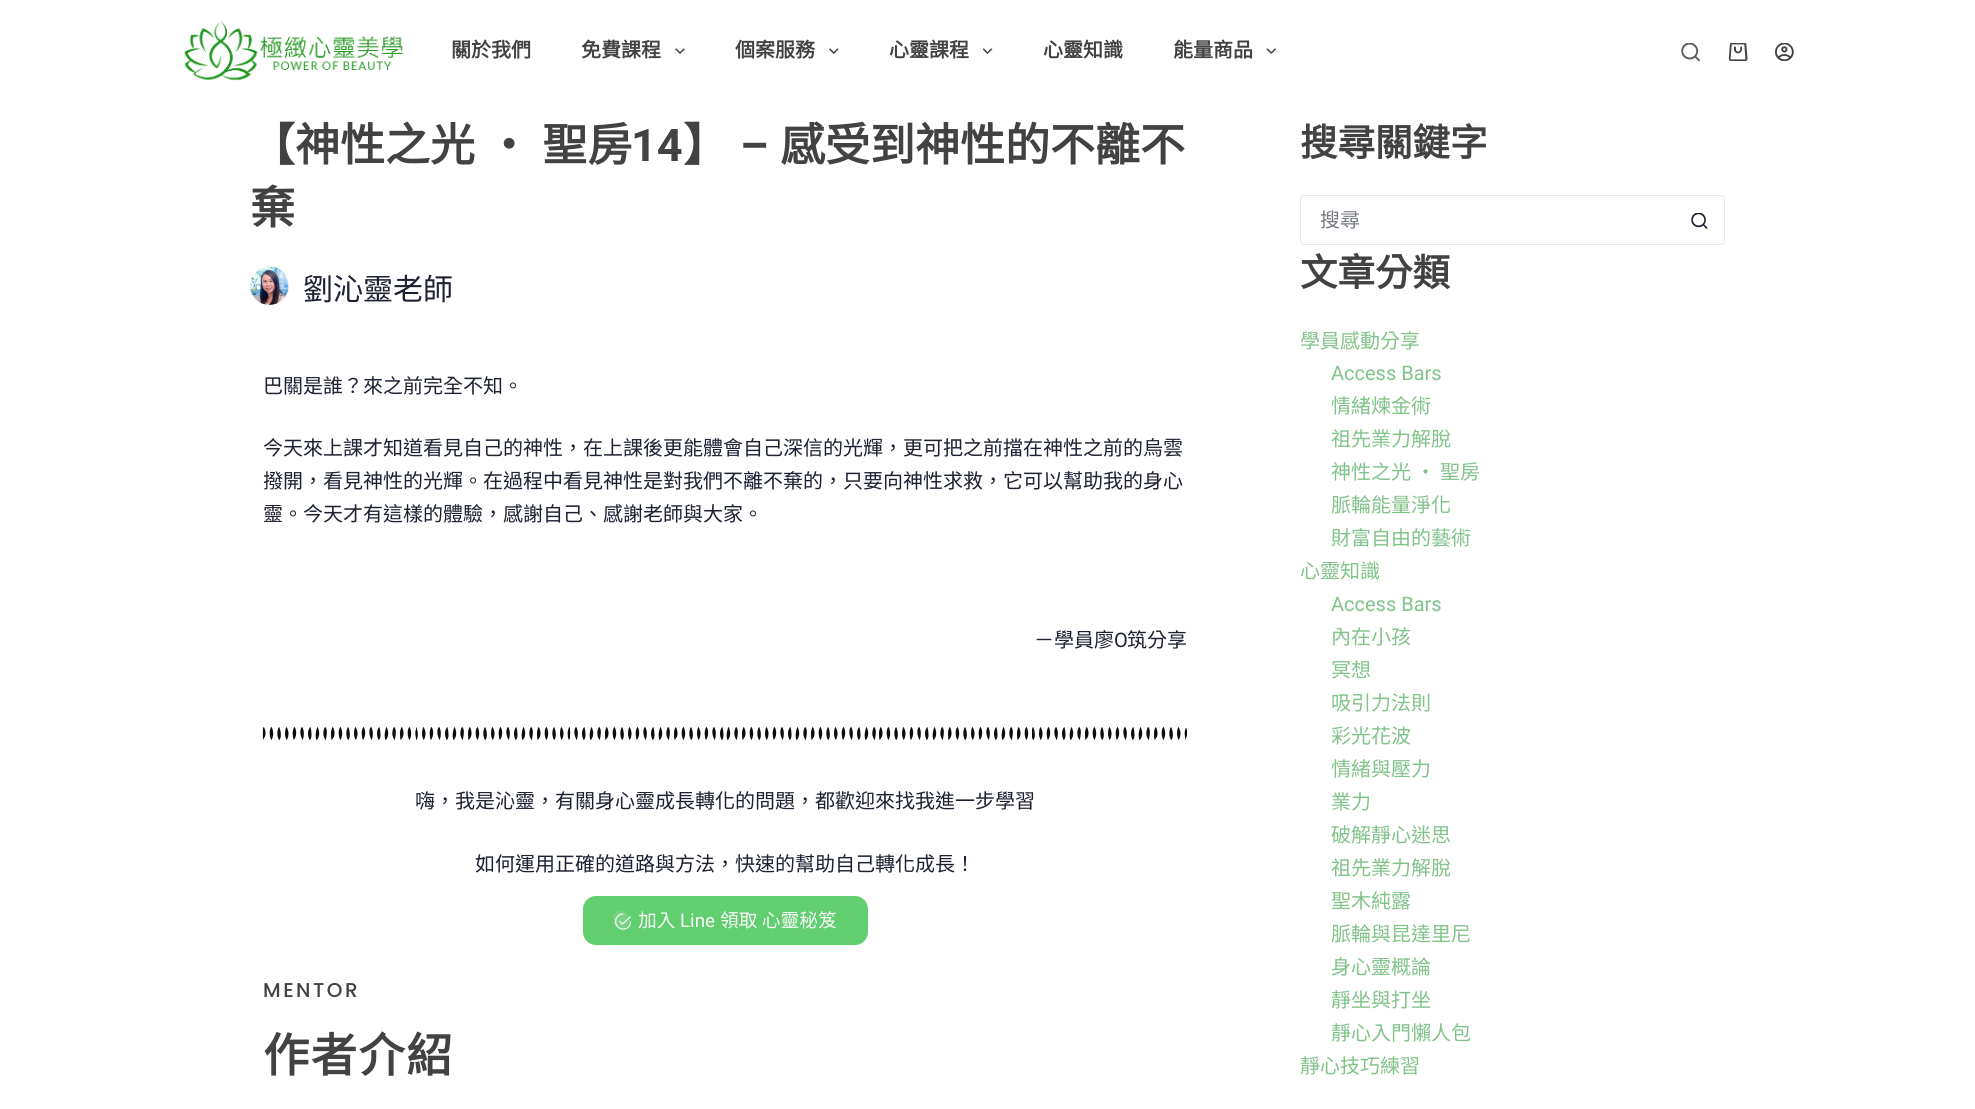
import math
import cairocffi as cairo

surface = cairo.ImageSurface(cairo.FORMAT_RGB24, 1975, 1109)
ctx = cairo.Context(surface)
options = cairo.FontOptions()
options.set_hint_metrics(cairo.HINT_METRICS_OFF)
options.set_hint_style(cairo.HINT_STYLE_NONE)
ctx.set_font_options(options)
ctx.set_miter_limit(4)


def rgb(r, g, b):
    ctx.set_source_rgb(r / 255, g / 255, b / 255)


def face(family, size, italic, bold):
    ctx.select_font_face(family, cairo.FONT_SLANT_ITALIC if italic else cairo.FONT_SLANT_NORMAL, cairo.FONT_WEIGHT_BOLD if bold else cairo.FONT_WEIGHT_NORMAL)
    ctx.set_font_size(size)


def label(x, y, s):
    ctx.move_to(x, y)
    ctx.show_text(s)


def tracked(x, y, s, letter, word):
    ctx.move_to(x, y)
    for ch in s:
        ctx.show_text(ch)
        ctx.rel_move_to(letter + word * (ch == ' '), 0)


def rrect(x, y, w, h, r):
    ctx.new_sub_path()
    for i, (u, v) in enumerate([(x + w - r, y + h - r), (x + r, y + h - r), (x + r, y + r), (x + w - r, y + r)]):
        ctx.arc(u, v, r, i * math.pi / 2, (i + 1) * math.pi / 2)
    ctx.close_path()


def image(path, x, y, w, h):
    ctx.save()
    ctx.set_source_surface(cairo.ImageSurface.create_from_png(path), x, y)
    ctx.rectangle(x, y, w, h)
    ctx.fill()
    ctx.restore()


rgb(255, 255, 255)
ctx.paint()
image('image0.png', 184, 21, 220, 60)
face('Noto Sans CJK TC', 20, 0, 1)
rgb(66, 66, 66)
label(451, 57, '關於我們')
label(581, 57, '免費課程')
image('image1.png', 675, 48, 10, 6)
label(735, 57, '個案服務')
image('image2.png', 829, 48, 10, 6)
label(889, 57, '心靈課程')
image('image3.png', 983, 48, 10, 6)
label(1043, 57, '心靈知識')
label(1173, 57, '能量商品')
image('image4.png', 1266, 48, 10, 6)
image('image5.png', 1681, 43, 19, 18)
image('image6.png', 1729, 43, 19, 18)
image('image7.png', 1775, 43, 19, 18)
face('Noto Sans CJK TC', 45, 0, 1)
tracked(250, 161, '【神性之光 ‧ 聖房', 0, 1)
face('Roboto', 45, 0, 1)
label(631, 161, '14')
face('Noto Sans CJK TC', 45, 0, 1)
label(683, 161, '】')
face('Roboto', 45, 0, 1)
label(740, 161, '–')
face('Noto Sans CJK TC', 45, 0, 1)
label(780, 161, '感受到神性的不離不')
label(250, 224, '棄')
image('image8.png', 250, 266, 39, 39)
face('Noto Sans CJK TC', 30, 0, 0)
rgb(30, 33, 50)
label(303, 300, '劉沁靈老師')
face('Noto Sans CJK TC', 20, 0, 0)
label(263, 393, '巴關是誰？來之前完全不知。')
label(263, 455, '今天來上課才知道看見自己的神性，在上課後更能體會自己深信的光輝，更可把之前擋在神性之前的烏雲')
label(263, 488, '撥開，看見神性的光輝。在過程中看見神性是對我們不離不棄的，只要向神性求救，它可以幫助我的身心')
label(263, 521, '靈。今天才有這樣的體驗，感謝自己、感謝老師與大家。')
label(1034, 647, '－學員廖')
face('Roboto', 20, 0, 0)
label(1114, 647, 'O')
face('Noto Sans CJK TC', 20, 0, 0)
label(1127, 647, '筑分享')
image('image9.png', 262, 727, 925, 14)
label(415, 808, '嗨，我是沁靈，有關身心靈成長轉化的問題，都歡迎來找我進一步學習')
label(475, 871, '如何運用正確的道路與方法，快速的幫助自己轉化成長！')
rgb(97, 206, 112)
rrect(583, 896, 285, 49, 13)
ctx.fill()
image('image10.png', 613, 911, 18, 19)
face('Noto Sans CJK TC', 18.75, 0, 0)
rgb(249, 249, 249)
label(638, 927, '加入')
face('Roboto', 18.75, 0, 0)
label(680, 927, 'Line')
face('Noto Sans CJK TC', 18.75, 0, 0)
label(720, 927, '領取 心靈秘笈')
face('Poppins Medium', 20, 0, 0)
rgb(66, 66, 66)
tracked(263, 997, 'MENTOR', 2.5, 0)
face('Noto Sans CJK TC', 46.25, 0, 1)
tracked(263, 1072, '作者介紹', 1.5, 0)
face('Noto Sans CJK TC', 37.5, 0, 1)
label(1300, 156, '搜尋關鍵字')
rgb(231, 231, 231)
ctx.set_fill_rule(cairo.FILL_RULE_EVEN_ODD)
ctx.new_path()
ctx.move_to(1304, 195)
ctx.line_to(1675, 195)
ctx.line_to(1675, 245)
ctx.line_to(1304, 245)
ctx.curve_to(1302, 245, 1300, 243, 1300, 241)
ctx.line_to(1300, 199)
ctx.curve_to(1300, 197, 1302, 195, 1304, 195)
ctx.close_path()
ctx.move_to(1304, 196)
ctx.line_to(1675, 196)
ctx.line_to(1675, 244)
ctx.line_to(1303, 244)
ctx.line_to(1301, 242)
ctx.line_to(1301, 206)
ctx.curve_to(1301, 205, 1300, 198, 1302, 197)
ctx.close_path()
ctx.fill()
face('Noto Sans CJK TC', 20, 0, 0)
rgb(120, 122, 132)
label(1320, 227, '搜尋')
rgb(231, 231, 231)
ctx.new_path()
ctx.move_to(1675, 195)
ctx.line_to(1721, 195)
ctx.curve_to(1723, 195, 1725, 197, 1725, 199)
ctx.line_to(1725, 241)
ctx.curve_to(1725, 243, 1723, 245, 1721, 245)
ctx.line_to(1675, 245)
ctx.close_path()
ctx.move_to(1675, 196)
ctx.line_to(1721, 196)
ctx.curve_to(1723, 196, 1724, 197, 1724, 199)
ctx.line_to(1724, 241)
ctx.curve_to(1724, 243, 1723, 244, 1721, 244)
ctx.line_to(1675, 244)
ctx.close_path()
ctx.fill()
image('image11.png', 1691, 213, 17, 16)
face('Noto Sans CJK TC', 37.5, 0, 1)
rgb(66, 66, 66)
label(1300, 286, '文章分類')
face('Noto Sans CJK TC', 20, 0, 0)
rgb(129, 195, 137)
label(1300, 348, '學員感動分享')
face('Roboto', 20, 0, 0)
label(1331, 380, 'Access Bars')
face('Noto Sans CJK TC', 20, 0, 0)
label(1331, 413, '情緒煉金術')
label(1331, 446, '祖先業力解脫')
label(1331, 479, '神性之光 ‧ 聖房')
label(1331, 512, '脈輪能量淨化')
label(1331, 545, '財富自由的藝術')
label(1300, 578, '心靈知識')
face('Roboto', 20, 0, 0)
label(1331, 611, 'Access Bars')
face('Noto Sans CJK TC', 20, 0, 0)
label(1331, 644, '內在小孩')
label(1331, 677, '冥想')
label(1331, 710, '吸引力法則')
label(1331, 743, '彩光花波')
label(1331, 776, '情緒與壓力')
label(1331, 809, '業力')
label(1331, 842, '破解靜心迷思')
label(1331, 875, '祖先業力解脫')
label(1331, 908, '聖木純露')
label(1331, 941, '脈輪與昆達里尼')
label(1331, 974, '身心靈概論')
label(1331, 1007, '靜坐與打坐')
label(1331, 1040, '靜心入門懶人包')
label(1300, 1073, '靜心技巧練習')
surface.write_to_png('render.png')
